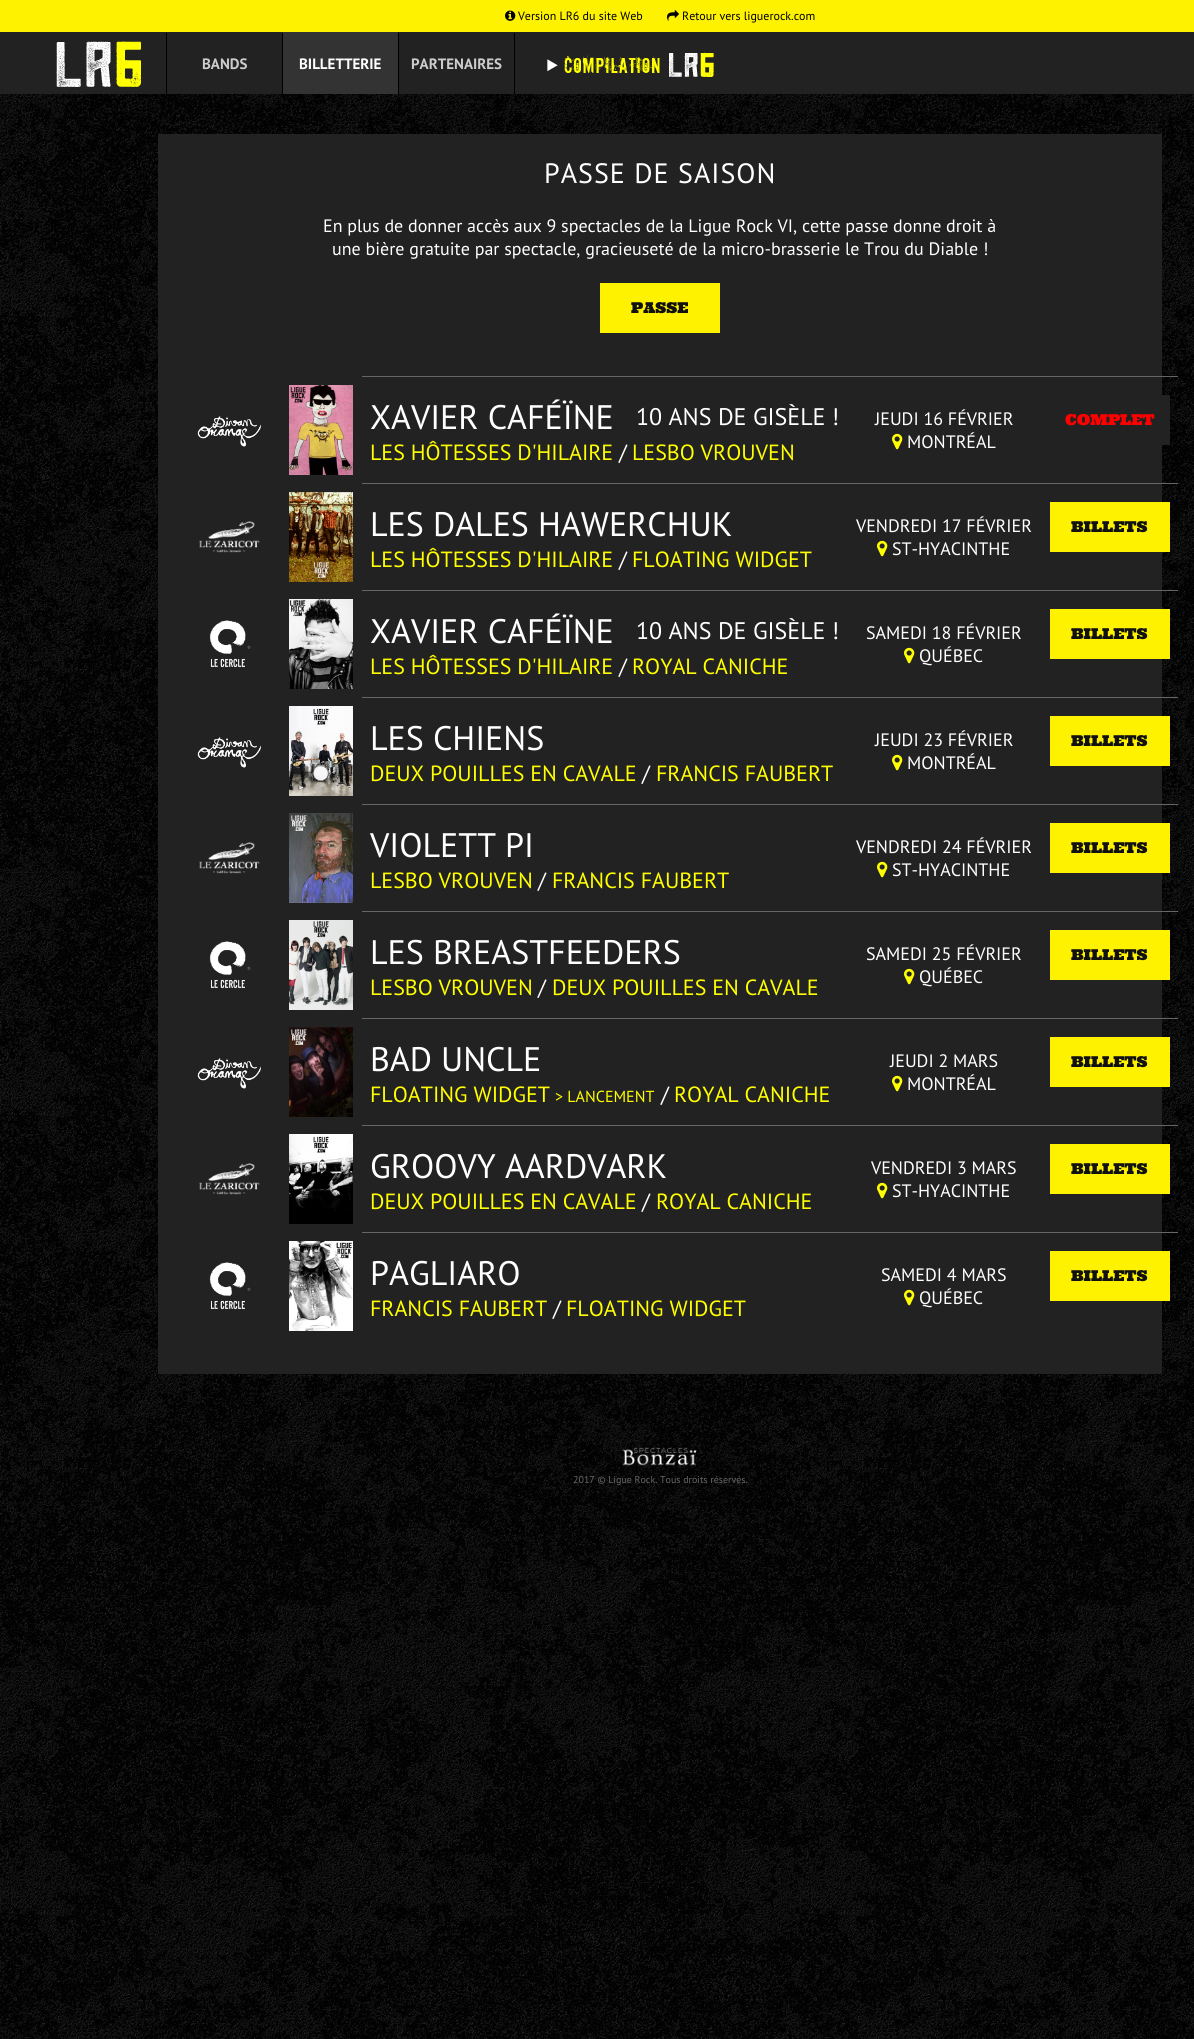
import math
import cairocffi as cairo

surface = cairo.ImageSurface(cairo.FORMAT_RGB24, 1194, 2039)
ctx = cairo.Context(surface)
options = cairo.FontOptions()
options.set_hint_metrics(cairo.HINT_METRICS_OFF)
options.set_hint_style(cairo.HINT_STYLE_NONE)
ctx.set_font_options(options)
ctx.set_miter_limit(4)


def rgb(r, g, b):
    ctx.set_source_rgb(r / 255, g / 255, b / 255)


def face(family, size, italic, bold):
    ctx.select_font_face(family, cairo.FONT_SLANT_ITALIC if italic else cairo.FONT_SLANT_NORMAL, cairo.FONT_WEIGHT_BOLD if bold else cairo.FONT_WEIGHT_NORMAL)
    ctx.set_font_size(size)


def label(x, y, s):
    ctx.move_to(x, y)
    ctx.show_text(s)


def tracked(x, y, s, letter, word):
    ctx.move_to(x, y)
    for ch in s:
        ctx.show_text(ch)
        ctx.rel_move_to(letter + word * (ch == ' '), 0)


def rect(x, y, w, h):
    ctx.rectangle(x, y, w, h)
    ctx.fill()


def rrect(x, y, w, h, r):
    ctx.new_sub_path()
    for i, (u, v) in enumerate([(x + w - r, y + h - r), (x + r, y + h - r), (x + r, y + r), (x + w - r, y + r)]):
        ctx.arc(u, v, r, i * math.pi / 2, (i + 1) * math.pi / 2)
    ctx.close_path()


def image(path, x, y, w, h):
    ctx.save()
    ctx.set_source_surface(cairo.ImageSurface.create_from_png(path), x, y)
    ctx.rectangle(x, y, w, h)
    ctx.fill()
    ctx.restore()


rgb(255, 255, 255)
ctx.paint()
image('image0.png', 0, 94, 1194, 1945)
rgb(254, 242, 0)
rect(0, 0, 1194, 32)
image('image1.png', 505, 10, 11, 11)
face('PT Sans', 12, 0, 0)
rgb(0, 0, 0)
label(518, 20, 'Version LR6 du site Web')
image('image2.png', 667, 10, 12, 11)
label(682, 20, 'Retour vers liguerock.com')
rgb(34, 34, 34)
rect(0, 32, 1194, 62)
image('image3.png', 56, 41, 85, 46)
rgb(0, 0, 0)
rect(166, 33, 1, 61)
face('PT Sans', 15, 0, 1)
rgb(204, 204, 204)
label(202, 69, 'BANDS')
rgb(51, 51, 51)
rrect(282, 32, 116, 62, 1)
ctx.fill()
rgb(0, 0, 0)
rect(282, 33, 1, 61)
rgb(255, 255, 255)
label(299, 69, 'BILLETTERIE')
rgb(0, 0, 0)
rect(514, 33, 1, 61)
rect(398, 33, 1, 61)
rgb(204, 204, 204)
label(411, 69, 'PARTENAIRES')
image('image4.png', 547, 52, 167, 26)
rgb(34, 34, 34)
rect(158, 134, 1004, 1240)
face('PT Sans', 28, 0, 0)
rgb(255, 255, 255)
tracked(544, 183, 'PASSE DE SAISON', 1, 0)
face('PT Sans', 18, 0, 0)
label(323, 232, 'En plus de donner accès aux 9 spectacles de la Ligue Rock VI, cette passe donne droit à')
label(332, 255, 'une bière gratuite par spectacle, gracieuseté de la micro-brasserie le Trou du Diable !')
rgb(254, 242, 0)
rect(600, 283, 120, 50)
face('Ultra', 15, 0, 0)
rgb(17, 17, 17)
label(631, 313, 'PASSE')
image('image5.png', 197, 416, 64, 31)
image('image6.png', 289, 385, 64, 90)
rgb(102, 102, 102)
rect(362, 376, 816, 1)
face('PT Sans', 34, 0, 0)
rgb(255, 255, 255)
label(370, 429, 'XAVIER CAFÉÏNE')
face('PT Sans', 24, 0, 0)
label(636, 425, '10 ANS DE GISÈLE !')
face('PT Sans', 22, 0, 0)
rgb(255, 255, 0)
label(370, 460, 'LES HÔTESSES D\'HILAIRE')
rgb(255, 255, 255)
label(619, 460, '/')
rgb(255, 255, 0)
label(632, 460, 'LESBO VROUVEN')
face('PT Sans', 18, 0, 0)
rgb(255, 255, 255)
label(875, 425, 'JEUDI 16 FÉVRIER')
image('image7.png', 892, 433, 11, 17)
label(907, 448, 'MONTRÉAL')
rgb(34, 34, 34)
rect(1162, 395, 8, 50)
face('Ultra', 15, 0, 0)
rgb(255, 0, 0)
label(1065, 425, 'COMPLET')
image('image8.png', 199, 521, 61, 32)
image('image9.png', 289, 492, 64, 90)
rgb(102, 102, 102)
rect(362, 483, 816, 1)
face('PT Sans', 34, 0, 0)
rgb(255, 255, 255)
label(370, 536, 'LES DALES HAWERCHUK')
face('PT Sans', 22, 0, 0)
rgb(255, 255, 0)
label(370, 567, 'LES HÔTESSES D\'HILAIRE')
rgb(255, 255, 255)
label(619, 567, '/')
rgb(255, 255, 0)
label(632, 567, 'FLOATING WIDGET')
face('PT Sans', 18, 0, 0)
rgb(255, 255, 255)
label(856, 532, 'VENDREDI 17 FÉVRIER')
image('image7.png', 877, 540, 11, 17)
label(892, 555, 'ST-HYACINTHE')
rgb(254, 242, 0)
rect(1050, 502, 120, 50)
face('Ultra', 15, 0, 0)
rgb(17, 17, 17)
label(1071, 532, 'BILLETS')
image('image10.png', 209, 620, 42, 48)
image('image11.png', 289, 599, 64, 90)
rgb(102, 102, 102)
rect(362, 590, 816, 1)
face('PT Sans', 34, 0, 0)
rgb(255, 255, 255)
label(370, 643, 'XAVIER CAFÉÏNE')
face('PT Sans', 24, 0, 0)
label(636, 639, '10 ANS DE GISÈLE !')
face('PT Sans', 22, 0, 0)
rgb(255, 255, 0)
label(370, 674, 'LES HÔTESSES D\'HILAIRE')
rgb(255, 255, 255)
label(619, 674, '/')
rgb(255, 255, 0)
label(632, 674, 'ROYAL CANICHE')
face('PT Sans', 18, 0, 0)
rgb(255, 255, 255)
label(866, 639, 'SAMEDI 18 FÉVRIER')
image('image7.png', 904, 647, 11, 17)
label(919, 662, 'QUÉBEC')
rgb(254, 242, 0)
rect(1050, 609, 120, 50)
face('Ultra', 15, 0, 0)
rgb(17, 17, 17)
label(1071, 639, 'BILLETS')
image('image12.png', 197, 737, 64, 31)
image('image13.png', 289, 706, 64, 90)
rgb(102, 102, 102)
rect(362, 697, 816, 1)
face('PT Sans', 34, 0, 0)
rgb(255, 255, 255)
label(370, 750, 'LES CHIENS')
face('PT Sans', 22, 0, 0)
rgb(255, 255, 0)
label(370, 781, 'DEUX POUILLES EN CAVALE')
rgb(255, 255, 255)
label(642, 781, '/')
rgb(255, 255, 0)
label(656, 781, 'FRANCIS FAUBERT')
face('PT Sans', 18, 0, 0)
rgb(255, 255, 255)
label(875, 746, 'JEUDI 23 FÉVRIER')
image('image7.png', 892, 754, 11, 17)
label(907, 769, 'MONTRÉAL')
rgb(254, 242, 0)
rect(1050, 716, 120, 50)
face('Ultra', 15, 0, 0)
rgb(17, 17, 17)
label(1071, 746, 'BILLETS')
image('image8.png', 199, 842, 61, 32)
image('image14.png', 289, 813, 64, 90)
rgb(102, 102, 102)
rect(362, 804, 816, 1)
face('PT Sans', 34, 0, 0)
rgb(255, 255, 255)
label(370, 857, 'VIOLETT PI')
face('PT Sans', 22, 0, 0)
rgb(255, 255, 0)
label(370, 888, 'LESBO VROUVEN')
rgb(255, 255, 255)
label(538, 888, '/')
rgb(255, 255, 0)
label(552, 888, 'FRANCIS FAUBERT')
face('PT Sans', 18, 0, 0)
rgb(255, 255, 255)
label(856, 853, 'VENDREDI 24 FÉVRIER')
image('image7.png', 877, 861, 11, 17)
label(892, 876, 'ST-HYACINTHE')
rgb(254, 242, 0)
rect(1050, 823, 120, 50)
face('Ultra', 15, 0, 0)
rgb(17, 17, 17)
label(1071, 853, 'BILLETS')
image('image10.png', 209, 941, 42, 48)
image('image15.png', 289, 920, 64, 90)
rgb(102, 102, 102)
rect(362, 911, 816, 1)
face('PT Sans', 34, 0, 0)
rgb(255, 255, 255)
label(370, 964, 'LES BREASTFEEDERS')
face('PT Sans', 22, 0, 0)
rgb(255, 255, 0)
label(370, 995, 'LESBO VROUVEN')
rgb(255, 255, 255)
label(538, 995, '/')
rgb(255, 255, 0)
label(552, 995, 'DEUX POUILLES EN CAVALE')
face('PT Sans', 18, 0, 0)
rgb(255, 255, 255)
label(866, 960, 'SAMEDI 25 FÉVRIER')
image('image7.png', 904, 968, 11, 17)
label(919, 983, 'QUÉBEC')
rgb(254, 242, 0)
rect(1050, 930, 120, 50)
face('Ultra', 15, 0, 0)
rgb(17, 17, 17)
label(1071, 960, 'BILLETS')
image('image16.png', 197, 1058, 64, 31)
image('image17.png', 289, 1027, 64, 90)
rgb(102, 102, 102)
rect(362, 1018, 816, 1)
face('PT Sans', 34, 0, 0)
rgb(255, 255, 255)
label(370, 1071, 'BAD UNCLE')
face('PT Sans', 22, 0, 0)
rgb(255, 255, 0)
label(370, 1102, 'FLOATING WIDGET')
face('PT Sans', 16, 0, 0)
label(555, 1102, '> LANCEMENT')
face('PT Sans', 22, 0, 0)
rgb(255, 255, 255)
label(661, 1102, '/')
rgb(255, 255, 0)
label(674, 1102, 'ROYAL CANICHE')
face('PT Sans', 18, 0, 0)
rgb(255, 255, 255)
label(890, 1067, 'JEUDI 2 MARS')
image('image7.png', 892, 1075, 11, 17)
label(907, 1090, 'MONTRÉAL')
rgb(254, 242, 0)
rect(1050, 1037, 120, 50)
face('Ultra', 15, 0, 0)
rgb(17, 17, 17)
label(1071, 1067, 'BILLETS')
image('image8.png', 199, 1163, 61, 32)
image('image18.png', 289, 1134, 64, 90)
rgb(102, 102, 102)
rect(362, 1125, 816, 1)
face('PT Sans', 34, 0, 0)
rgb(255, 255, 255)
label(370, 1178, 'GROOVY AARDVARK')
face('PT Sans', 22, 0, 0)
rgb(255, 255, 0)
label(370, 1209, 'DEUX POUILLES EN CAVALE')
rgb(255, 255, 255)
label(642, 1209, '/')
rgb(255, 255, 0)
label(656, 1209, 'ROYAL CANICHE')
face('PT Sans', 18, 0, 0)
rgb(255, 255, 255)
label(871, 1174, 'VENDREDI 3 MARS')
image('image7.png', 877, 1182, 11, 17)
label(892, 1197, 'ST-HYACINTHE')
rgb(254, 242, 0)
rect(1050, 1144, 120, 50)
face('Ultra', 15, 0, 0)
rgb(17, 17, 17)
label(1071, 1174, 'BILLETS')
image('image10.png', 209, 1262, 42, 48)
image('image19.png', 289, 1241, 64, 90)
rgb(102, 102, 102)
rect(362, 1232, 816, 1)
face('PT Sans', 34, 0, 0)
rgb(255, 255, 255)
label(370, 1285, 'PAGLIARO')
face('PT Sans', 22, 0, 0)
rgb(255, 255, 0)
label(370, 1316, 'FRANCIS FAUBERT')
rgb(255, 255, 255)
label(553, 1316, '/')
rgb(255, 255, 0)
label(566, 1316, 'FLOATING WIDGET')
face('PT Sans', 18, 0, 0)
rgb(255, 255, 255)
label(881, 1281, 'SAMEDI 4 MARS')
image('image7.png', 904, 1289, 11, 17)
label(919, 1304, 'QUÉBEC')
rgb(254, 242, 0)
rect(1050, 1251, 120, 50)
face('Ultra', 15, 0, 0)
rgb(17, 17, 17)
label(1071, 1281, 'BILLETS')
image('image20.png', 622, 1447, 75, 19)
face('PT Sans', 10, 0, 0)
rgb(102, 102, 102)
label(573, 1483, '2017 © Ligue Rock. Tous droits réservés.')
surface.write_to_png('render.png')
